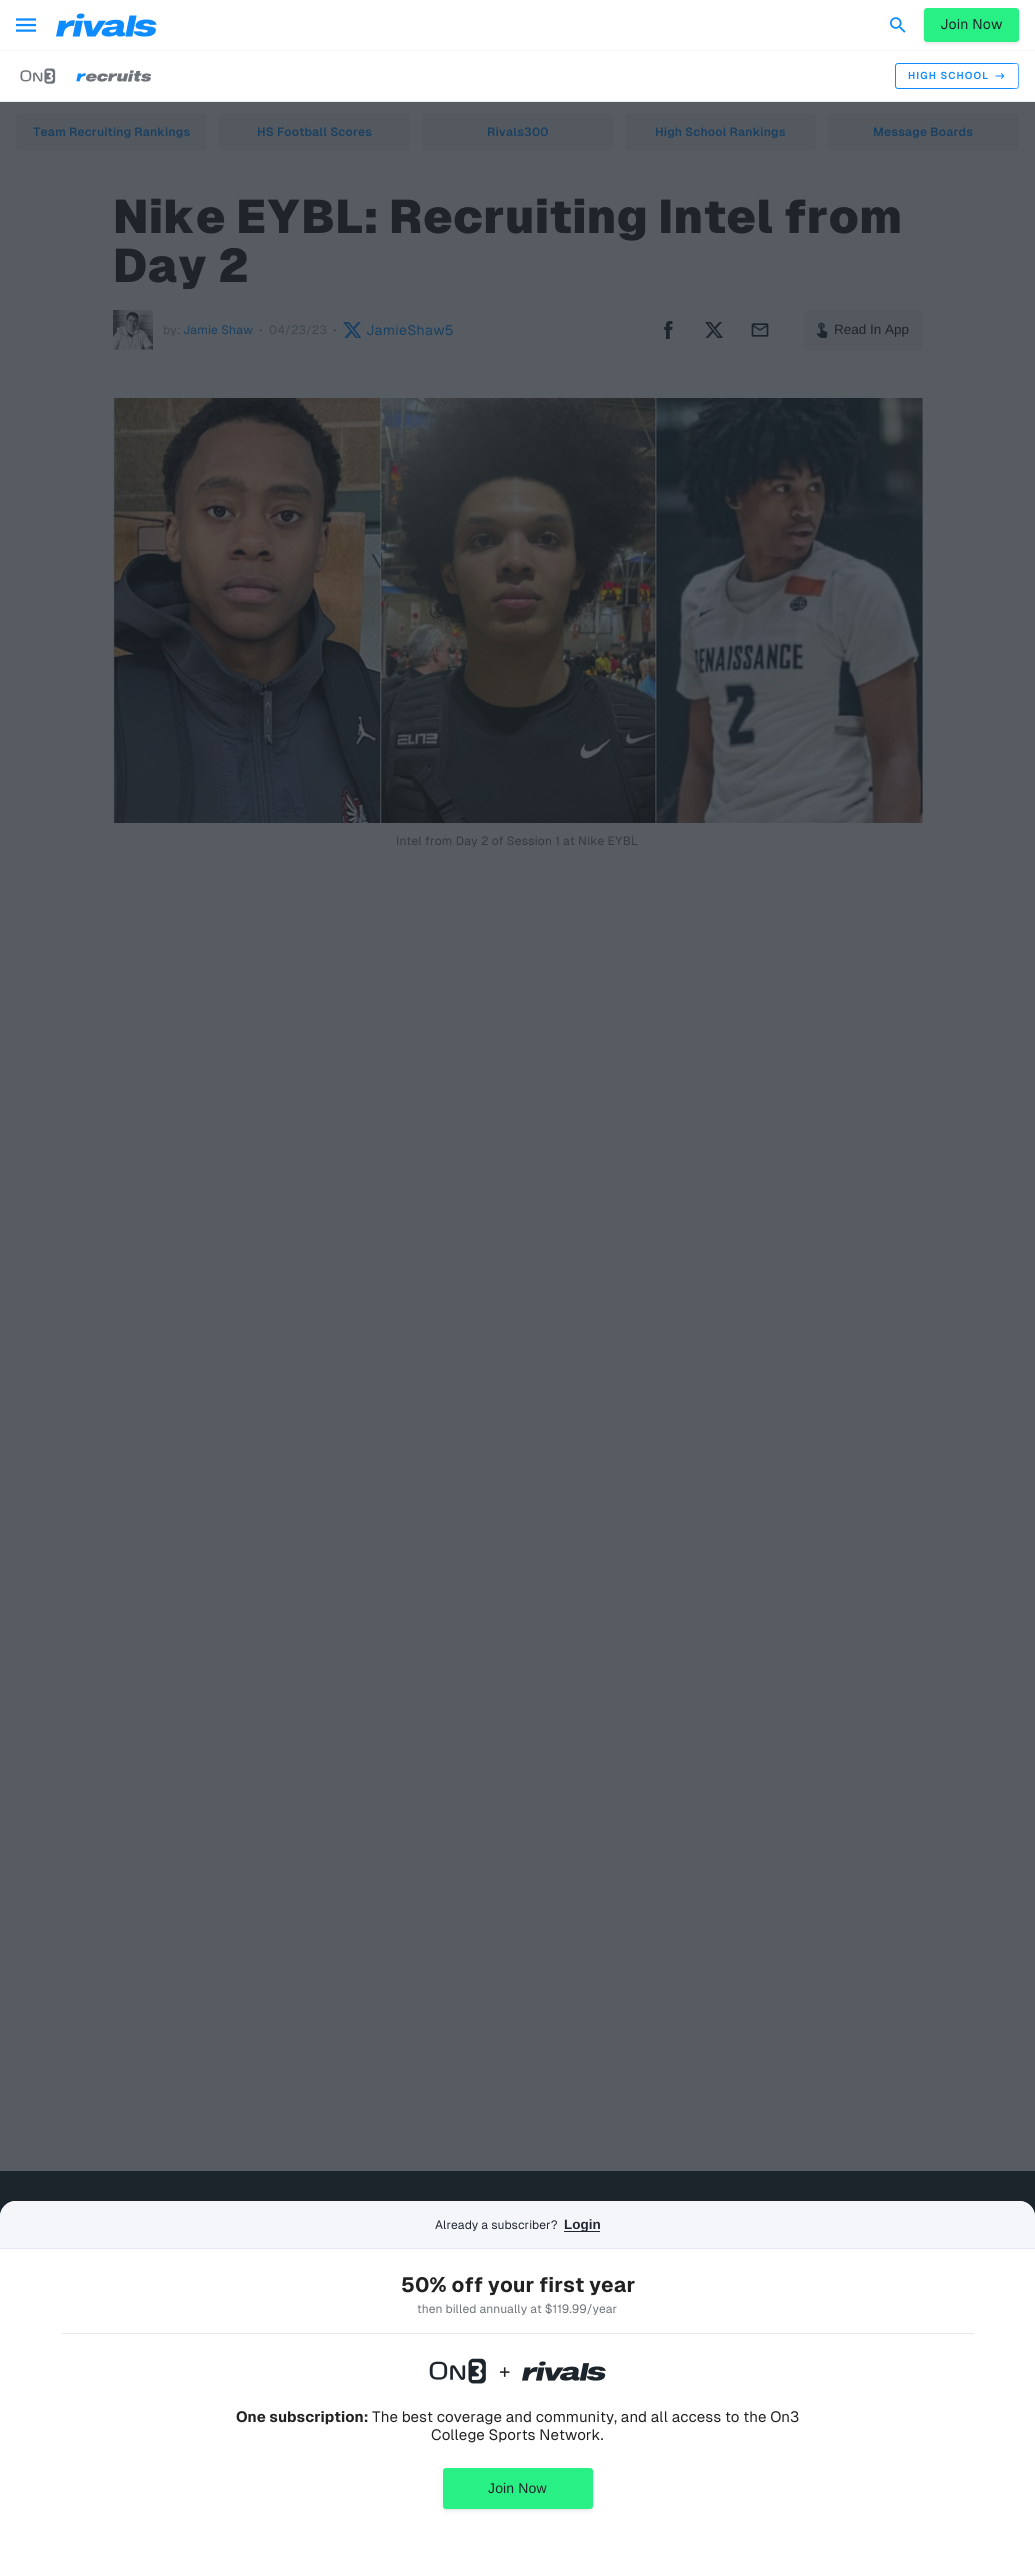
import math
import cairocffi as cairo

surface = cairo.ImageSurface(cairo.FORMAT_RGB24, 1035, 2557)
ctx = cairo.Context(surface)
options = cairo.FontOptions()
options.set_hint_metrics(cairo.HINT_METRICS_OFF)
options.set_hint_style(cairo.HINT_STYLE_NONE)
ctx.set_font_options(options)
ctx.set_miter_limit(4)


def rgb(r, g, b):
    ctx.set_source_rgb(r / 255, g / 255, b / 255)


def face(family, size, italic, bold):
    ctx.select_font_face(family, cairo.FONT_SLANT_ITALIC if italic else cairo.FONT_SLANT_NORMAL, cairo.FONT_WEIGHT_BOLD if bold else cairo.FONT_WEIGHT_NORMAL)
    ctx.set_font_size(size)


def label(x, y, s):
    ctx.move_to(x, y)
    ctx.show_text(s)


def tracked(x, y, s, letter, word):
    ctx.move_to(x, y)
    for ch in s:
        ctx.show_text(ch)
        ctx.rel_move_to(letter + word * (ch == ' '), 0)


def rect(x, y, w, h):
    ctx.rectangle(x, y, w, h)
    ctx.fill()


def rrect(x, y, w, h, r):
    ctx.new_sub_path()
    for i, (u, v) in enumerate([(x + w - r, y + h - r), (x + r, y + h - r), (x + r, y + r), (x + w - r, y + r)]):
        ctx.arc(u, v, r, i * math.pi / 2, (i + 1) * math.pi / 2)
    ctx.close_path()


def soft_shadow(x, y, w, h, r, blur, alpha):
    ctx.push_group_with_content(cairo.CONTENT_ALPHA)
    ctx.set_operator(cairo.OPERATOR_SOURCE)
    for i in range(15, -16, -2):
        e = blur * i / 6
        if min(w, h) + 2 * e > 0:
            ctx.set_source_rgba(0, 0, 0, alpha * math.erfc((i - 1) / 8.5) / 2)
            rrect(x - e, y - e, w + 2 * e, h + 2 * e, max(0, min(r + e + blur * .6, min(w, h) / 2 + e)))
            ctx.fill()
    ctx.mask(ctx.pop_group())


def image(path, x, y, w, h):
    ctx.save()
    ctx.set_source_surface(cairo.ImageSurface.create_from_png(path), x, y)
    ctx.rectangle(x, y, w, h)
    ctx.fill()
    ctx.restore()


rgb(86, 92, 97)
ctx.paint()
rgb(255, 255, 255)
rect(0, 0, 1035, 101)
rgb(233, 236, 243)
rect(0, 101, 1035, 1)
image('image0.png', 16, 18, 20, 14)
image('image1.png', 56, 13, 101, 24)
image('image2.png', 890, 17, 16, 16)
rgb(245, 246, 249)
rect(0, 50, 1035, 1)
rgb(0, 0, 0)
soft_shadow(924, 10, 95, 34, 3, 2, 0.1)
rgb(41, 240, 133)
rrect(924, 8, 95, 34, 3)
ctx.fill()
face('Geist', 14, 0, 0)
rgb(30, 36, 41)
tracked(940, 29, 'Join Now', 0.15, 0)
image('image3.png', 20, 68, 36, 16)
image('image4.png', 76, 70, 75, 12)
rrect(895.5, 63.5, 123, 25, 2.5)
rgb(13, 139, 255)
ctx.set_line_width(1)
ctx.stroke()
face('Geist SemiBold', 10, 0, 0)
tracked(908, 79, 'HIGH SCHOOL', 1.1, 0)
image('image5.png', 995, 73, 10, 6)
gradient = cairo.LinearGradient(1011, 76, 1035, 76)
gradient.add_color_stop_rgba(0, 1, 1, 1, 0)
gradient.add_color_stop_rgba(1, 1, 1, 1, 1)
ctx.set_source(gradient)
rect(1012, 63, 7, 26)
rgb(83, 89, 95)
rrect(16, 114, 191, 36, 2)
ctx.fill()
face('Geist SemiBold', 12, 0, 0)
rgb(25, 63, 97)
tracked(33, 136, 'Team Recruiting Rankings', 0.15, 0)
rgb(83, 89, 95)
rrect(219, 114, 191, 36, 2)
ctx.fill()
rgb(25, 63, 97)
tracked(257, 136, 'HS Football Scores', 0.15, 0)
rgb(83, 89, 95)
rrect(422, 114, 191, 36, 2)
ctx.fill()
rgb(25, 63, 97)
tracked(487, 136, 'Rivals300', 0.15, 0)
rgb(83, 89, 95)
rrect(625, 114, 191, 36, 2)
ctx.fill()
rgb(25, 63, 97)
tracked(655, 136, 'High School Rankings', 0.15, 0)
rgb(83, 89, 95)
rrect(828, 114, 191, 36, 2)
ctx.fill()
rgb(25, 63, 97)
tracked(873, 136, 'Message Boards', 0.15, 0)
face('Geist ExtraBold', 47, 0, 0)
rgb(30, 36, 41)
tracked(113, 233, 'Nike EYBL: Recruiting Intel from', 0.25, 0)
tracked(113, 282, 'Day 2', 0.25, 0)
image('image6.png', 113, 310, 40, 40)
face('Geist', 12, 0, 0)
rgb(62, 70, 76)
tracked(163, 334, 'by:', 0.15, 0)
rgb(25, 63, 97)
tracked(183, 334, 'Jamie Shaw', 0.15, 0)
rgb(62, 70, 76)
tracked(259, 334, '•', 0.15, 0)
tracked(269, 334, '04/23/23', 0.15, 0)
tracked(333, 334, '•', 0.15, 0)
image('image7.png', 343, 322, 19, 16)
face('Geist', 14, 0, 0)
rgb(25, 63, 97)
tracked(366, 335, 'JamieShaw5', 0.25, 0)
image('image8.png', 664, 321, 9, 18)
image('image9.png', 705, 322, 18, 16)
image('image10.png', 751, 323, 18, 14)
rgb(83, 89, 95)
rrect(804, 310, 119, 40, 3)
ctx.fill()
image('image11.png', 816, 322, 12, 16)
face('Liberation Sans', 13.5, 0, 0)
rgb(30, 36, 41)
label(834, 334, 'Read In App')
image('image12.png', 113, 398, 810, 425)
face('Geist', 12, 0, 0)
rgb(50, 57, 64)
tracked(396, 845, 'Intel from Day 2 of Session 1 at Nike EYBL', 0.15, 0)
rgb(29, 37, 44)
rect(0, 2171, 1035, 46)
rgb(255, 255, 255)
ctx.new_path()
ctx.move_to(16, 2201)
ctx.line_to(1019, 2201)
ctx.curve_to(1028, 2201, 1035, 2208, 1035, 2217)
ctx.line_to(1035, 2557)
ctx.line_to(0, 2557)
ctx.line_to(0, 2217)
ctx.curve_to(0, 2208, 7, 2201, 16, 2201)
ctx.close_path()
ctx.fill()
rgb(245, 246, 249)
ctx.new_path()
ctx.move_to(16, 2201)
ctx.line_to(1019, 2201)
ctx.curve_to(1028, 2201, 1035, 2208, 1035, 2217)
ctx.line_to(1035, 2249)
ctx.line_to(0, 2249)
ctx.line_to(0, 2217)
ctx.curve_to(0, 2208, 7, 2201, 16, 2201)
ctx.close_path()
ctx.fill()
rgb(228, 232, 242)
rect(0, 2248, 1035, 1)
rgb(32, 39, 51)
label(435, 2229, 'Already a subscriber?')
rect(564, 2231, 36, 1)
face('Liberation Sans', 13.5, 0, 1)
label(564, 2229, 'Login')
rgb(228, 232, 242)
rect(62, 2333, 912, 1)
face('Geist', 20.75, 0, 1)
rgb(33, 33, 33)
label(401, 2292, '50% off your first year')
face('Geist', 12, 0, 0)
rgb(111, 116, 123)
label(417, 2313, 'then billed annually at $119.99/year')
image('image13.png', 429, 2358, 57, 26)
face('Geist', 20, 0, 0)
rgb(33, 33, 33)
label(499, 2378, '+')
image('image14.png', 522, 2361, 84, 20)
face('Geist', 15, 0, 1)
label(236, 2422, 'One subscription:')
face('Geist', 15, 0, 0)
label(372, 2422, 'The best coverage and community, and all access to the On3')
label(431, 2440, 'College Sports Network.')
rgb(0, 0, 0)
soft_shadow(443, 2470, 150, 41, 3, 2, 0.1)
rgb(41, 240, 133)
rrect(443, 2468, 150, 41, 3)
ctx.fill()
face('Liberation Sans', 14, 0, 0)
rgb(30, 36, 41)
tracked(488, 2493, 'Join Now', 0.15, 0)
surface.write_to_png('render.png')
